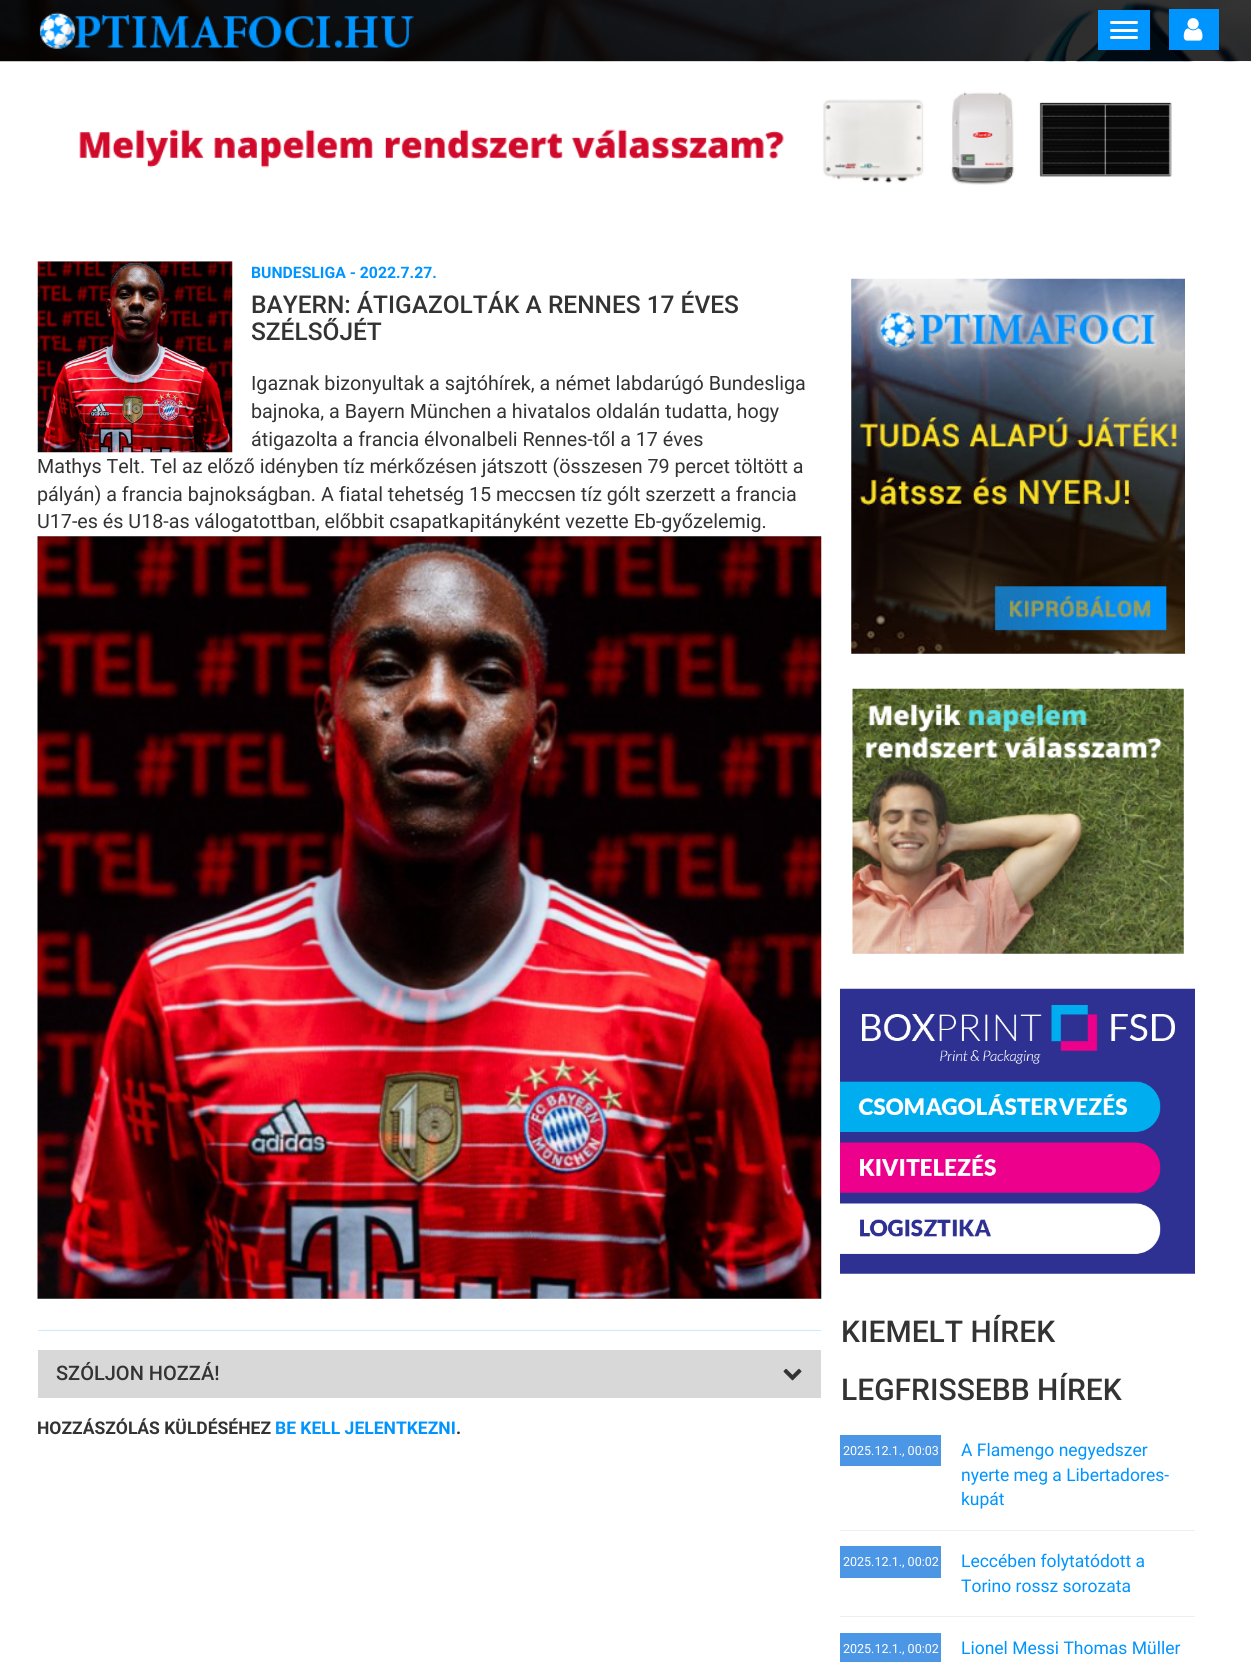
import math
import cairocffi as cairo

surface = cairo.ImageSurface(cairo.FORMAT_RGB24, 1251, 1662)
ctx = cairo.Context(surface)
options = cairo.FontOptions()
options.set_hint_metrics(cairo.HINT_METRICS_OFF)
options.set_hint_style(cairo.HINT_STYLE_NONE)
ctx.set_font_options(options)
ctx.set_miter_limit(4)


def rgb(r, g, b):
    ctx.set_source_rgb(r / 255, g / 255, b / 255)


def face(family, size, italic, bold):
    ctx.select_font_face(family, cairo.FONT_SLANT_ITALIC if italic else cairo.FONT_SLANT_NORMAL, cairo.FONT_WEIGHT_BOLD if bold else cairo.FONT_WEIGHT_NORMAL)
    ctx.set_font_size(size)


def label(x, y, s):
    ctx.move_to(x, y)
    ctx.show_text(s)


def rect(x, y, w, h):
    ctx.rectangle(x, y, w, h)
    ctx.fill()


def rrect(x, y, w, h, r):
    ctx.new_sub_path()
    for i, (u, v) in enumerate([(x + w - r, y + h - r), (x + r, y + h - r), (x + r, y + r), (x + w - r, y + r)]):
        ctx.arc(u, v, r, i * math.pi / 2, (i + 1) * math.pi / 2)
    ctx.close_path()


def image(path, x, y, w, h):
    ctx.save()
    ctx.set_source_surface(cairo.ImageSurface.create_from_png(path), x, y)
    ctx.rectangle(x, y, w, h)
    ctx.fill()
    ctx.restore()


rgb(255, 255, 255)
ctx.paint()
image('image0.png', 0, 0, 1251, 62)
image('image1.png', 39, 12, 375, 37)
rgb(0, 148, 255)
rect(1098, 10, 52, 40)
rgb(255, 255, 255)
rrect(1110, 21, 28, 3, 1.5)
ctx.fill()
rrect(1110, 29, 28, 3, 1.5)
ctx.fill()
rrect(1110, 36, 28, 3, 1.5)
ctx.fill()
rgb(0, 148, 255)
rect(1169, 9, 50, 41)
image('image2.png', 1183, 18, 20, 23)
image('image3.png', 79, 92, 1093, 93)
image('image4.png', 37, 261, 196, 192)
face('Roboto', 15.75, 0, 1)
label(251, 278, 'BUNDESLIGA - 2022.7.27.')
face('Roboto Medium', 24.5, 0, 0)
rgb(51, 51, 51)
label(251, 313, 'BAYERN: ÁTIGAZOLTÁK A RENNES 17 ÉVES')
label(251, 340, 'SZÉLSŐJÉT')
face('Roboto', 19.7, 0, 0)
label(251, 390, 'Igaznak bizonyultak a sajtóhírek, a német labdarúgó Bundesliga')
label(251, 418, 'bajnoka, a Bayern München a hivatalos oldalán tudatta, hogy')
label(251, 446, 'átigazolta a francia élvonalbeli Rennes-től a 17 éves')
label(37, 473, 'Mathys Telt. Tel az előző idényben tíz mérkőzésen játszott (összesen 79 percet töltött a')
label(37, 501, 'pályán) a francia bajnokságban. A fiatal tehetség 15 meccsen tíz gólt szerzett a francia')
label(37, 528, 'U17-es és U18-as válogatottban, előbbit csapatkapitányként vezette Eb-győzelemig.')
image('image5.png', 37, 536, 785, 763)
rgb(203, 233, 255)
rect(38, 1330, 783, 1)
rgb(216, 216, 216)
rect(38, 1350, 783, 48)
face('Roboto Medium', 20, 0, 0)
rgb(51, 51, 51)
label(56, 1380, 'SZÓLJON HOZZÁ!')
image('image6.png', 783, 1368, 19, 13)
face('Roboto', 17.5, 0, 1)
label(37, 1434, 'HOZZÁSZÓLÁS KÜLDÉSÉHEZ')
rgb(0, 148, 255)
label(275, 1434, 'BE KELL JELENTKEZNI')
rgb(51, 51, 51)
label(456, 1434, '.')
image('image7.png', 851, 278, 334, 376)
image('image8.png', 852, 688, 332, 266)
image('image9.png', 840, 988, 355, 286)
face('Roboto Medium', 30, 0, 0)
label(841, 1342, 'KIEMELT HÍREK')
label(841, 1400, 'LEGFRISSEBB HÍREK')
rgb(238, 238, 238)
rect(840, 1530, 355, 1)
rgb(76, 150, 230)
rect(840, 1435, 101, 31)
face('Roboto', 12.5, 0, 0)
rgb(255, 255, 255)
label(843, 1455, '2025.12.1., 00:03')
face('Roboto', 17.5, 0, 0)
rgb(0, 148, 255)
label(961, 1456, 'A Flamengo negyedszer')
label(961, 1481, 'nyerte meg a Libertadores-')
label(961, 1505, 'kupát')
rgb(238, 238, 238)
rect(840, 1616, 355, 1)
rgb(76, 150, 230)
rect(840, 1546, 101, 32)
face('Roboto', 12.5, 0, 0)
rgb(255, 255, 255)
label(843, 1566, '2025.12.1., 00:02')
face('Roboto', 17.5, 0, 0)
rgb(0, 148, 255)
label(961, 1567, 'Leccében folytatódott a')
label(961, 1592, 'Torino rossz sorozata')
rgb(76, 150, 230)
rect(840, 1633, 101, 29)
face('Roboto', 12.5, 0, 0)
rgb(255, 255, 255)
label(843, 1653, '2025.12.1., 00:02')
face('Roboto', 17.5, 0, 0)
rgb(0, 148, 255)
label(961, 1654, 'Lionel Messi Thomas Müller')
surface.write_to_png('render.png')
